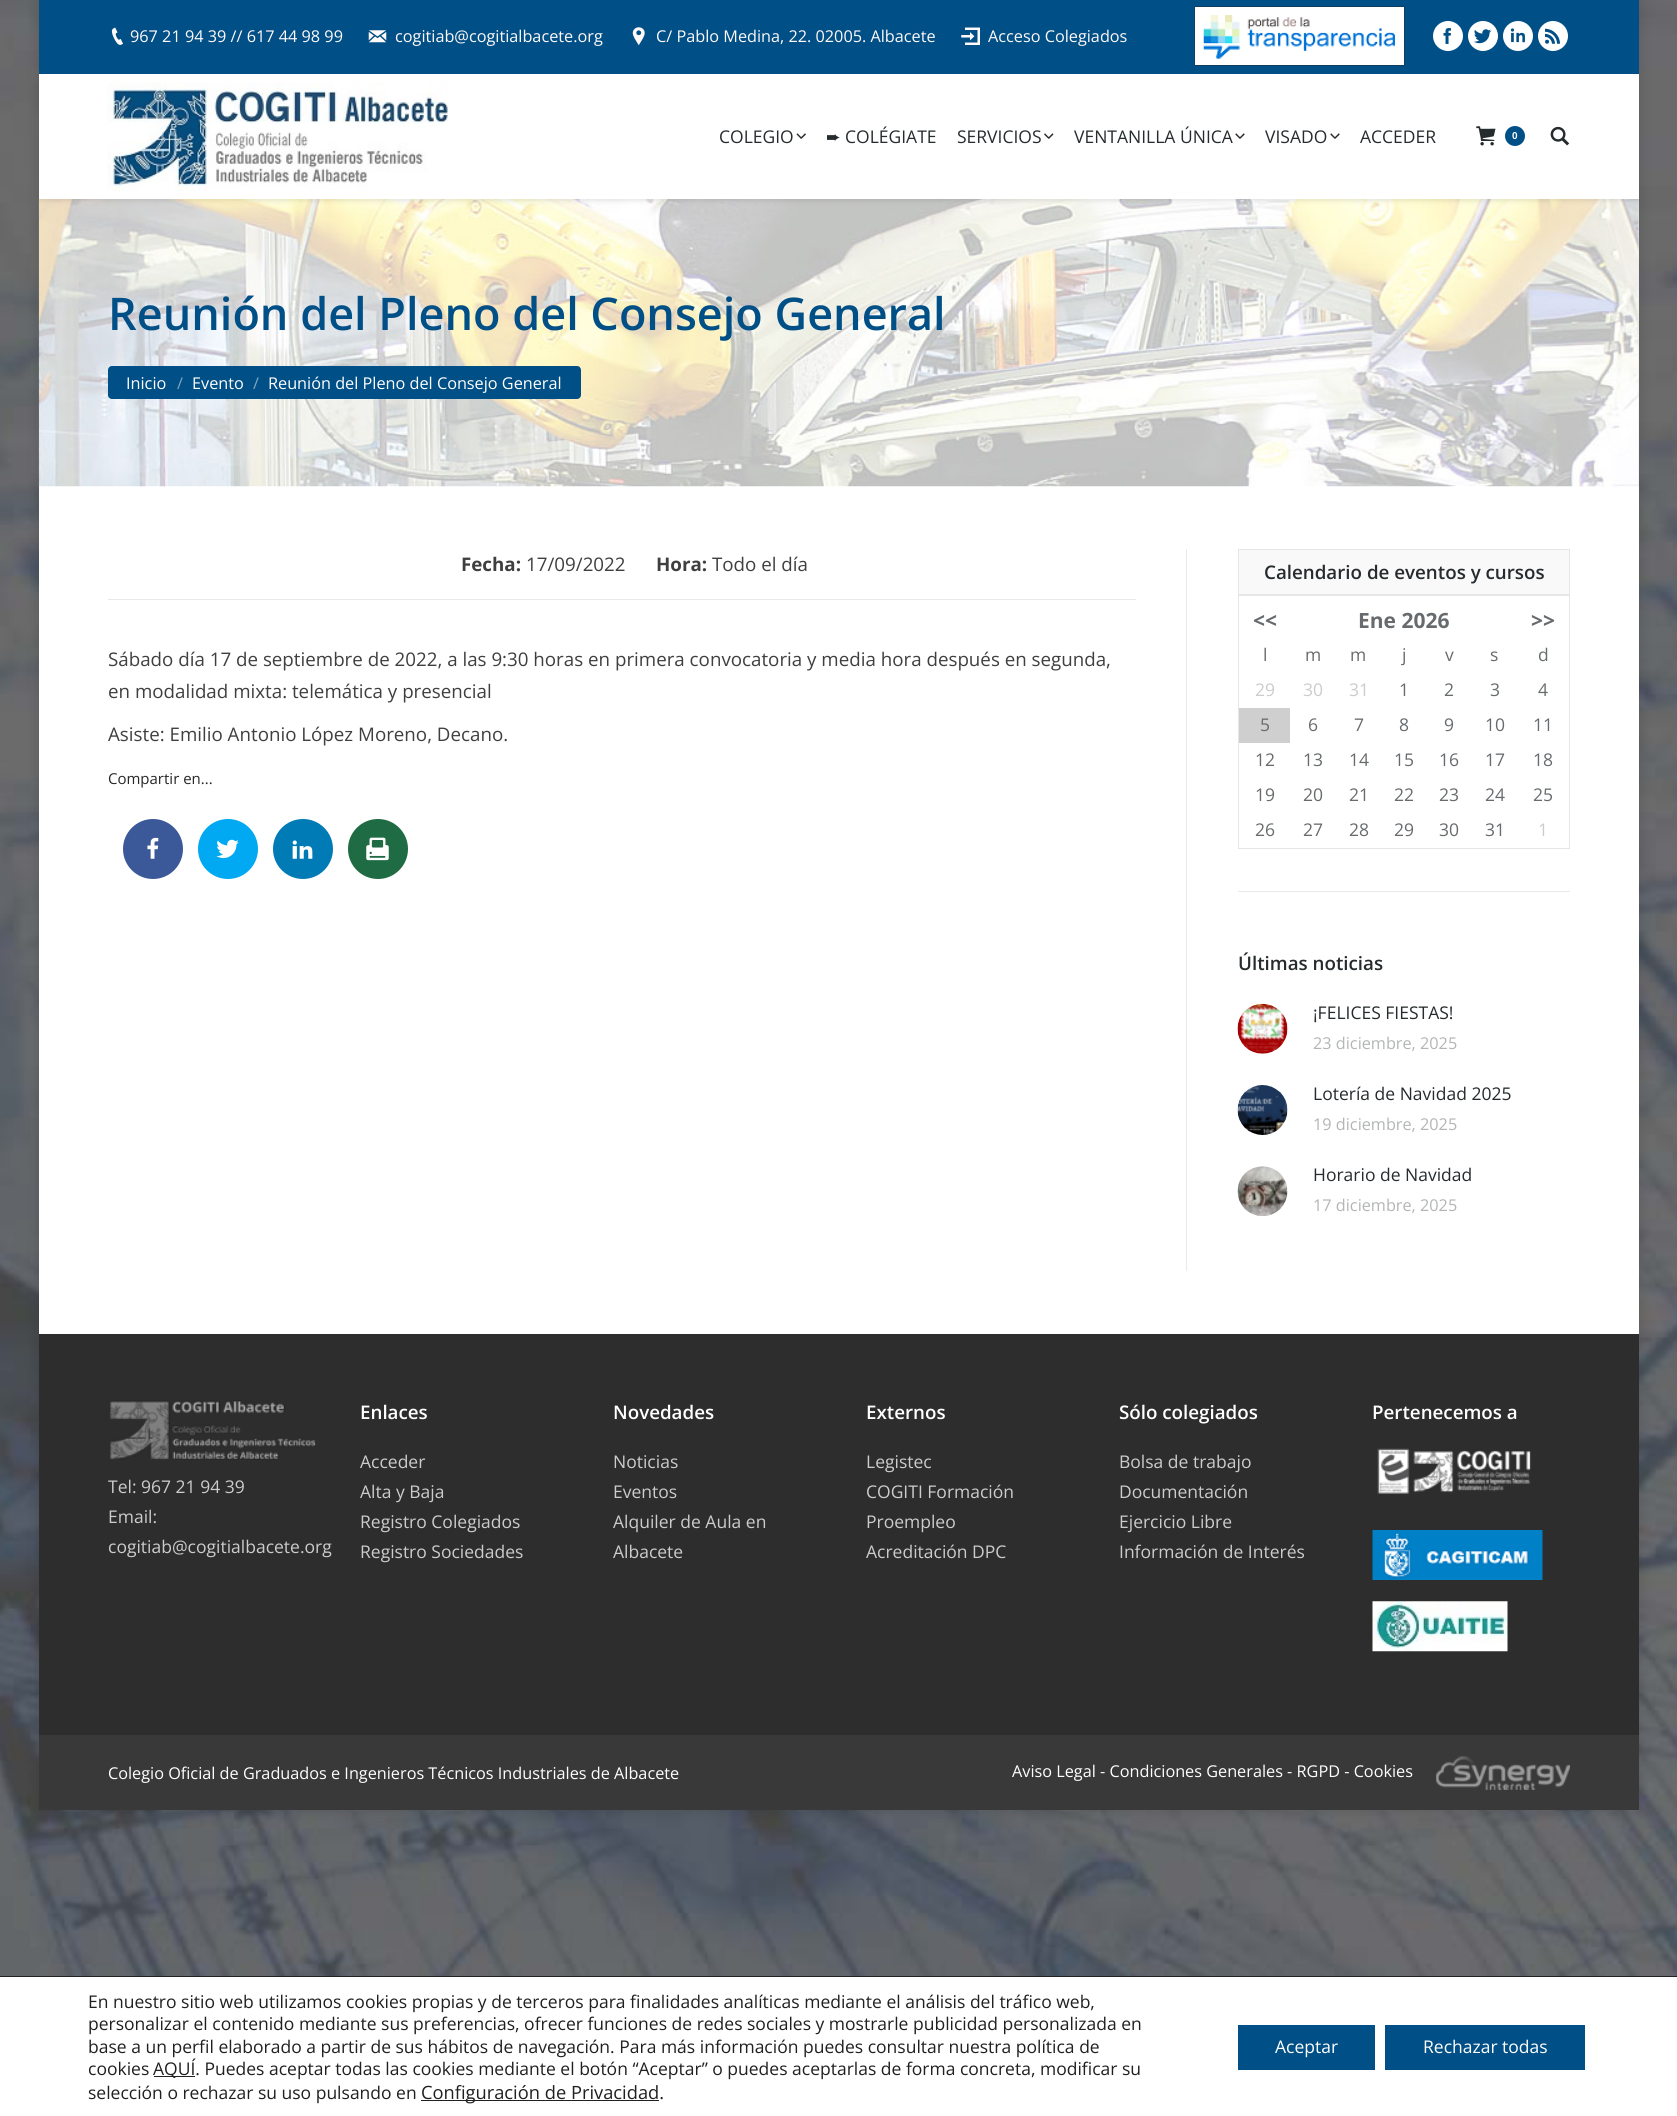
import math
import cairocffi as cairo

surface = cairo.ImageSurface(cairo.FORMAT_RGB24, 1677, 2116)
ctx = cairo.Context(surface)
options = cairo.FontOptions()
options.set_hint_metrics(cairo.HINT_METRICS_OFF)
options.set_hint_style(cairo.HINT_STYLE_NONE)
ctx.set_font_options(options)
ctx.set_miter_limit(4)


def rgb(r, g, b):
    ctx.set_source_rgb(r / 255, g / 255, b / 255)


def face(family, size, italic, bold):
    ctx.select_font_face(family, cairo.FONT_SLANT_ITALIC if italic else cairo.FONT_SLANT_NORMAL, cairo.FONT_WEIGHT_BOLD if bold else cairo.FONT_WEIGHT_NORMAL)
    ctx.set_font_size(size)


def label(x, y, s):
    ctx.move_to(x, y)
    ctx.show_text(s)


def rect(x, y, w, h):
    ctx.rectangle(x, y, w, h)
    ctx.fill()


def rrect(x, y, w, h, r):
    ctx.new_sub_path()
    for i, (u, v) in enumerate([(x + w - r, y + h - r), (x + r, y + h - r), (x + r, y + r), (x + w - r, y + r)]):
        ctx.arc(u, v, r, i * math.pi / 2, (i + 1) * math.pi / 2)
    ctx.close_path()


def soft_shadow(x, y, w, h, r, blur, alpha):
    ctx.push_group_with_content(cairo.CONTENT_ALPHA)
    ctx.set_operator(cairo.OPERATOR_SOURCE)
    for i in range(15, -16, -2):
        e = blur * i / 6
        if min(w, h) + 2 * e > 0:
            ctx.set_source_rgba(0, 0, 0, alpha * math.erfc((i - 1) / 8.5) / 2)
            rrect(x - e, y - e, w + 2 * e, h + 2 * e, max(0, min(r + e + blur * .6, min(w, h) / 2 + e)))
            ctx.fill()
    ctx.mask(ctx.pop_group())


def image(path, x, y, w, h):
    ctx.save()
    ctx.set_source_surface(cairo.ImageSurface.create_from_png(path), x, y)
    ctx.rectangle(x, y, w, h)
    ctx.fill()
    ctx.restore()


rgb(255, 255, 255)
ctx.paint()
image('image0.png', 0, 0, 1677, 1976)
rgb(0, 0, 0)
soft_shadow(39, 0, 1600, 1810, 0, 7.5, 0.15)
rgb(255, 255, 255)
rect(39, 486, 1600, 848)
rgb(234, 234, 234)
rect(1638, 199, 1, 287)
image('image16.png', 38, 199, 1601, 288)
ctx.save()
ctx.rectangle(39, 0, 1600, 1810)
ctx.clip()
rgb(0, 0, 0)
soft_shadow(39, 0, 1602, 201, 0, 2.5, 0.1)
ctx.restore()
rgb(255, 255, 255)
rect(39, 74, 1600, 125)
rgb(0, 79, 134)
rect(39, 0, 1600, 74)
image('image1.png', 111, 27, 12, 18)
face('Open Sans', 16.25, 0, 0)
rgb(255, 249, 249)
label(130, 42, '967 21 94 39 // 617 44 98 99')
image('image2.png', 368, 30, 19, 13)
label(395, 42, 'cogitiab@cogitialbacete.org')
image('image3.png', 632, 27, 13, 19)
label(656, 42, 'C/ Pablo Medina, 22. 02005. Albacete')
image('image4.png', 961, 27, 19, 18)
label(988, 42, 'Acceso Colegiados')
rgb(255, 255, 255)
ctx.rectangle(1194.5, 6.5, 210, 59)
ctx.fill_preserve()
rgb(16, 64, 97)
ctx.set_line_width(1)
ctx.stroke()
image('image5.png', 1203, 15, 192, 44)
rgb(255, 255, 255)
ctx.arc(1448, 36, 15, 0, 2 * math.pi)
ctx.fill()
image('image6.png', 1443, 28, 8, 16)
ctx.arc(1483, 36, 15, 0, 2 * math.pi)
ctx.fill()
image('image7.png', 1474, 29, 17, 15)
ctx.arc(1518, 36, 15, 0, 2 * math.pi)
ctx.fill()
image('image8.png', 1510, 28, 15, 15)
ctx.arc(1553, 36, 15, 0, 2 * math.pi)
ctx.fill()
image('image9.png', 1545, 28, 15, 16)
image('image10.png', 107, 82, 342, 109)
face('Open Sans', 17.5, 0, 0)
rgb(38, 43, 46)
label(719, 143, 'COLEGIO')
image('image11.png', 796, 133, 10, 6)
face('DejaVu Sans', 17.5, 0, 0)
label(826, 143, '➨')
face('Open Sans', 17.5, 0, 0)
label(845, 143, 'COLÉGIATE')
label(957, 143, 'SERVICIOS')
image('image12.png', 1044, 133, 10, 6)
label(1074, 143, 'VENTANILLA ÚNICA')
image('image13.png', 1235, 133, 10, 6)
label(1265, 143, 'VISADO')
image('image13.png', 1330, 133, 10, 6)
label(1360, 143, 'ACCEDER')
image('image14.png', 1476, 126, 20, 20)
rgb(0, 79, 134)
ctx.arc(1515, 136, 10, 0, 2 * math.pi)
ctx.fill()
face('Liberation Sans', 10, 0, 1)
rgb(255, 255, 255)
label(1512, 139, '0')
image('image15.png', 1550, 126, 20, 20)
face('Open Sans SemiBold', 45, 0, 0)
rgb(0, 79, 134)
label(108, 330, 'Reunión del Pleno del Consejo General')
rrect(108, 366, 473, 33, 4)
ctx.fill()
face('Open Sans', 16.25, 0, 0)
rgb(255, 255, 255)
label(126, 389, 'Inicio')
rgb(128, 167, 195)
label(177, 389, '/')
rgb(255, 255, 255)
label(192, 389, 'Evento')
rgb(128, 167, 195)
label(253, 389, '/')
rgb(255, 255, 255)
label(268, 389, 'Reunión del Pleno del Consejo General')
rgb(231, 232, 232)
rect(108, 599, 1028, 1)
face('Open Sans', 18.75, 0, 1)
rgb(63, 63, 63)
label(461, 571, 'Fecha:')
face('Open Sans', 18.75, 0, 0)
label(526, 571, '17/09/2022')
face('Open Sans', 18.75, 0, 1)
label(656, 571, 'Hora:')
face('Open Sans', 18.75, 0, 0)
label(712, 571, 'Todo el día')
label(108, 666, 'Sábado día 17 de septiembre de 2022, a las 9:30 horas en primera convocatoria y media hora después en segunda,')
label(108, 698, 'en modalidad mixta: telemática y presencial')
label(108, 741, 'Asiste: Emilio Antonio López Moreno, Decano.')
face('Open Sans', 15, 0, 0)
rgb(39, 39, 39)
label(108, 784, 'Compartir en...')
rgb(59, 89, 152)
ctx.new_path()
ctx.arc(153, 849, 30, 0, 2 * math.pi)
ctx.fill()
image('image17.png', 147, 837, 12, 22)
rgb(0, 169, 241)
ctx.arc(228, 849, 30, 0, 2 * math.pi)
ctx.fill()
image('image18.png', 216, 839, 23, 20)
rgb(0, 123, 182)
ctx.arc(303, 849, 30, 0, 2 * math.pi)
ctx.fill()
image('image19.png', 292, 840, 21, 19)
rgb(31, 107, 67)
ctx.arc(378, 849, 30, 0, 2 * math.pi)
ctx.fill()
image('image20.png', 366, 837, 23, 24)
rgb(232, 233, 233)
rect(1186, 549, 1, 722)
rgb(249, 249, 249)
ctx.rectangle(1238.5, 549.5, 331, 45)
ctx.fill_preserve()
rgb(230, 230, 230)
ctx.stroke()
face('Open Sans SemiBold', 18.75, 0, 0)
rgb(38, 43, 46)
label(1264, 579, 'Calendario de eventos y cursos')
ctx.rectangle(1238.5, 595.5, 331, 253)
rgb(230, 230, 230)
ctx.stroke()
face('Open Sans', 21, 0, 1)
rgb(103, 107, 109)
label(1253, 628, '<<')
label(1358, 628, 'Ene 2026')
label(1531, 628, '>>')
face('Open Sans', 17.5, 0, 0)
label(1263, 661, 'l')
label(1305, 661, 'm')
label(1350, 661, 'm')
label(1402, 661, 'j')
label(1445, 661, 'v')
label(1490, 661, 's')
label(1538, 661, 'd')
rgb(204, 204, 204)
label(1255, 696, '29')
label(1303, 696, '30')
label(1349, 696, '31')
rgb(103, 107, 109)
label(1399, 696, '1')
label(1444, 696, '2')
label(1490, 696, '3')
label(1538, 696, '4')
rgb(207, 207, 207)
rect(1239, 708, 51, 35)
rgb(103, 107, 109)
label(1260, 731, '5')
label(1308, 731, '6')
label(1354, 731, '7')
label(1399, 731, '8')
label(1444, 731, '9')
label(1485, 731, '10')
label(1533, 731, '11')
label(1255, 766, '12')
label(1303, 766, '13')
label(1349, 766, '14')
label(1394, 766, '15')
label(1439, 766, '16')
label(1485, 766, '17')
label(1533, 766, '18')
label(1255, 801, '19')
label(1303, 801, '20')
label(1349, 801, '21')
label(1394, 801, '22')
label(1439, 801, '23')
label(1485, 801, '24')
label(1533, 801, '25')
label(1255, 836, '26')
label(1303, 836, '27')
label(1349, 836, '28')
label(1394, 836, '29')
label(1439, 836, '30')
label(1485, 836, '31')
rgb(204, 204, 204)
label(1538, 836, '1')
rgb(232, 233, 233)
rect(1238, 891, 332, 1)
face('Open Sans SemiBold', 18.75, 0, 0)
rgb(38, 43, 46)
label(1238, 970, 'Últimas noticias')
image('image21.png', 1237, 1003, 51, 51)
face('Open Sans', 17.5, 0, 0)
label(1313, 1019, '¡FELICES FIESTAS!')
face('Open Sans', 16.25, 0, 0)
rgb(179, 181, 182)
label(1313, 1049, '23 diciembre, 2025')
image('image22.png', 1237, 1085, 51, 50)
face('Open Sans', 17.5, 0, 0)
rgb(38, 43, 46)
label(1313, 1100, 'Lotería de Navidad 2025')
face('Open Sans', 16.25, 0, 0)
rgb(179, 181, 182)
label(1313, 1130, '19 diciembre, 2025')
image('image23.png', 1237, 1166, 51, 50)
face('Open Sans', 17.5, 0, 0)
rgb(38, 43, 46)
label(1313, 1181, 'Horario de Navidad')
face('Open Sans', 16.25, 0, 0)
rgb(179, 181, 182)
label(1313, 1211, '17 diciembre, 2025')
rgb(45, 45, 45)
rect(39, 1334, 1600, 401)
face('Open Sans SemiBold', 18.75, 0, 0)
rgb(255, 255, 255)
label(360, 1419, 'Enlaces')
face('Open Sans', 17.5, 0, 0)
rgb(204, 204, 204)
label(360, 1468, 'Acceder')
label(360, 1498, 'Alta y Baja')
label(360, 1528, 'Registro Colegiados')
label(360, 1558, 'Registro Sociedades')
face('Open Sans SemiBold', 18.75, 0, 0)
rgb(255, 255, 255)
label(613, 1419, 'Novedades')
face('Open Sans', 17.5, 0, 0)
rgb(204, 204, 204)
label(613, 1468, 'Noticias')
label(613, 1498, 'Eventos')
label(613, 1528, 'Alquiler de Aula en')
label(613, 1558, 'Albacete')
face('Open Sans SemiBold', 18.75, 0, 0)
rgb(255, 255, 255)
label(866, 1419, 'Externos')
face('Open Sans', 17.5, 0, 0)
rgb(204, 204, 204)
label(866, 1468, 'Legistec')
label(866, 1498, 'COGITI Formación')
label(866, 1528, 'Proempleo')
label(866, 1558, 'Acreditación DPC')
face('Open Sans SemiBold', 18.75, 0, 0)
rgb(255, 255, 255)
label(1119, 1419, 'Sólo colegiados')
face('Open Sans', 17.5, 0, 0)
rgb(204, 204, 204)
label(1119, 1468, 'Bolsa de trabajo')
label(1119, 1498, 'Documentación')
label(1119, 1528, 'Ejercicio Libre')
label(1119, 1558, 'Información de Interés')
face('Open Sans SemiBold', 18.75, 0, 0)
rgb(255, 255, 255)
label(1372, 1419, 'Pertenecemos a')
image('image24.png', 1377, 1448, 154, 46)
image('image25.png', 1372, 1530, 171, 50)
image('image26.png', 1372, 1601, 136, 51)
image('image27.png', 110, 1400, 206, 60)
face('Open Sans', 17.5, 0, 0)
rgb(204, 204, 204)
label(108, 1493, 'Tel: 967 21 94 39')
label(108, 1523, 'Email:')
label(108, 1553, 'cogitiab@cogitialbacete.org')
rgb(57, 57, 57)
rect(39, 1735, 1600, 75)
face('Open Sans', 16.25, 0, 0)
rgb(255, 255, 255)
label(108, 1779, 'Colegio Oficial de Graduados e Ingenieros Técnicos Industriales de Albacete')
label(1012, 1777, 'Aviso Legal - Condiciones Generales - RGPD - Cookies')
image('image28.png', 1436, 1756, 134, 34)
rgb(32, 32, 32)
rect(0, 1976, 1677, 1)
face('Open Sans', 17.5, 0, 0)
label(88, 2008, 'En nuestro sitio web utilizamos cookies propias y de terceros para finalidades analíticas mediante el análisis del tráfico web,')
label(88, 2030, 'personalizar el contenido mediante sus preferencias, ofrecer funciones de redes sociales y mostrarle publicidad personalizada en')
label(88, 2053, 'base a un perfil elaborado a partir de sus hábitos de navegación. Para más información puedes consultar nuestra política de')
label(88, 2075, 'cookies')
rect(154, 2076, 41, 1)
label(153, 2075, 'AQUÍ. Puedes aceptar todas las cookies mediante el botón “Aceptar” o puedes aceptarlas de forma concreta, modificar su')
label(88, 2099, 'selección o rechazar su uso pulsando en')
rect(421, 2100, 238, 1)
face('Open Sans', 18.3, 0, 0)
label(421, 2099, 'Configuración de Privacidad.')
rgb(0, 79, 134)
rect(1238, 2025, 137, 45)
face('Open Sans', 17.5, 0, 0)
rgb(255, 255, 255)
label(1275, 2053, 'Aceptar')
rgb(0, 79, 134)
rect(1385, 2025, 200, 45)
rgb(255, 255, 255)
label(1423, 2053, 'Rechazar todas')
surface.write_to_png('render.png')
